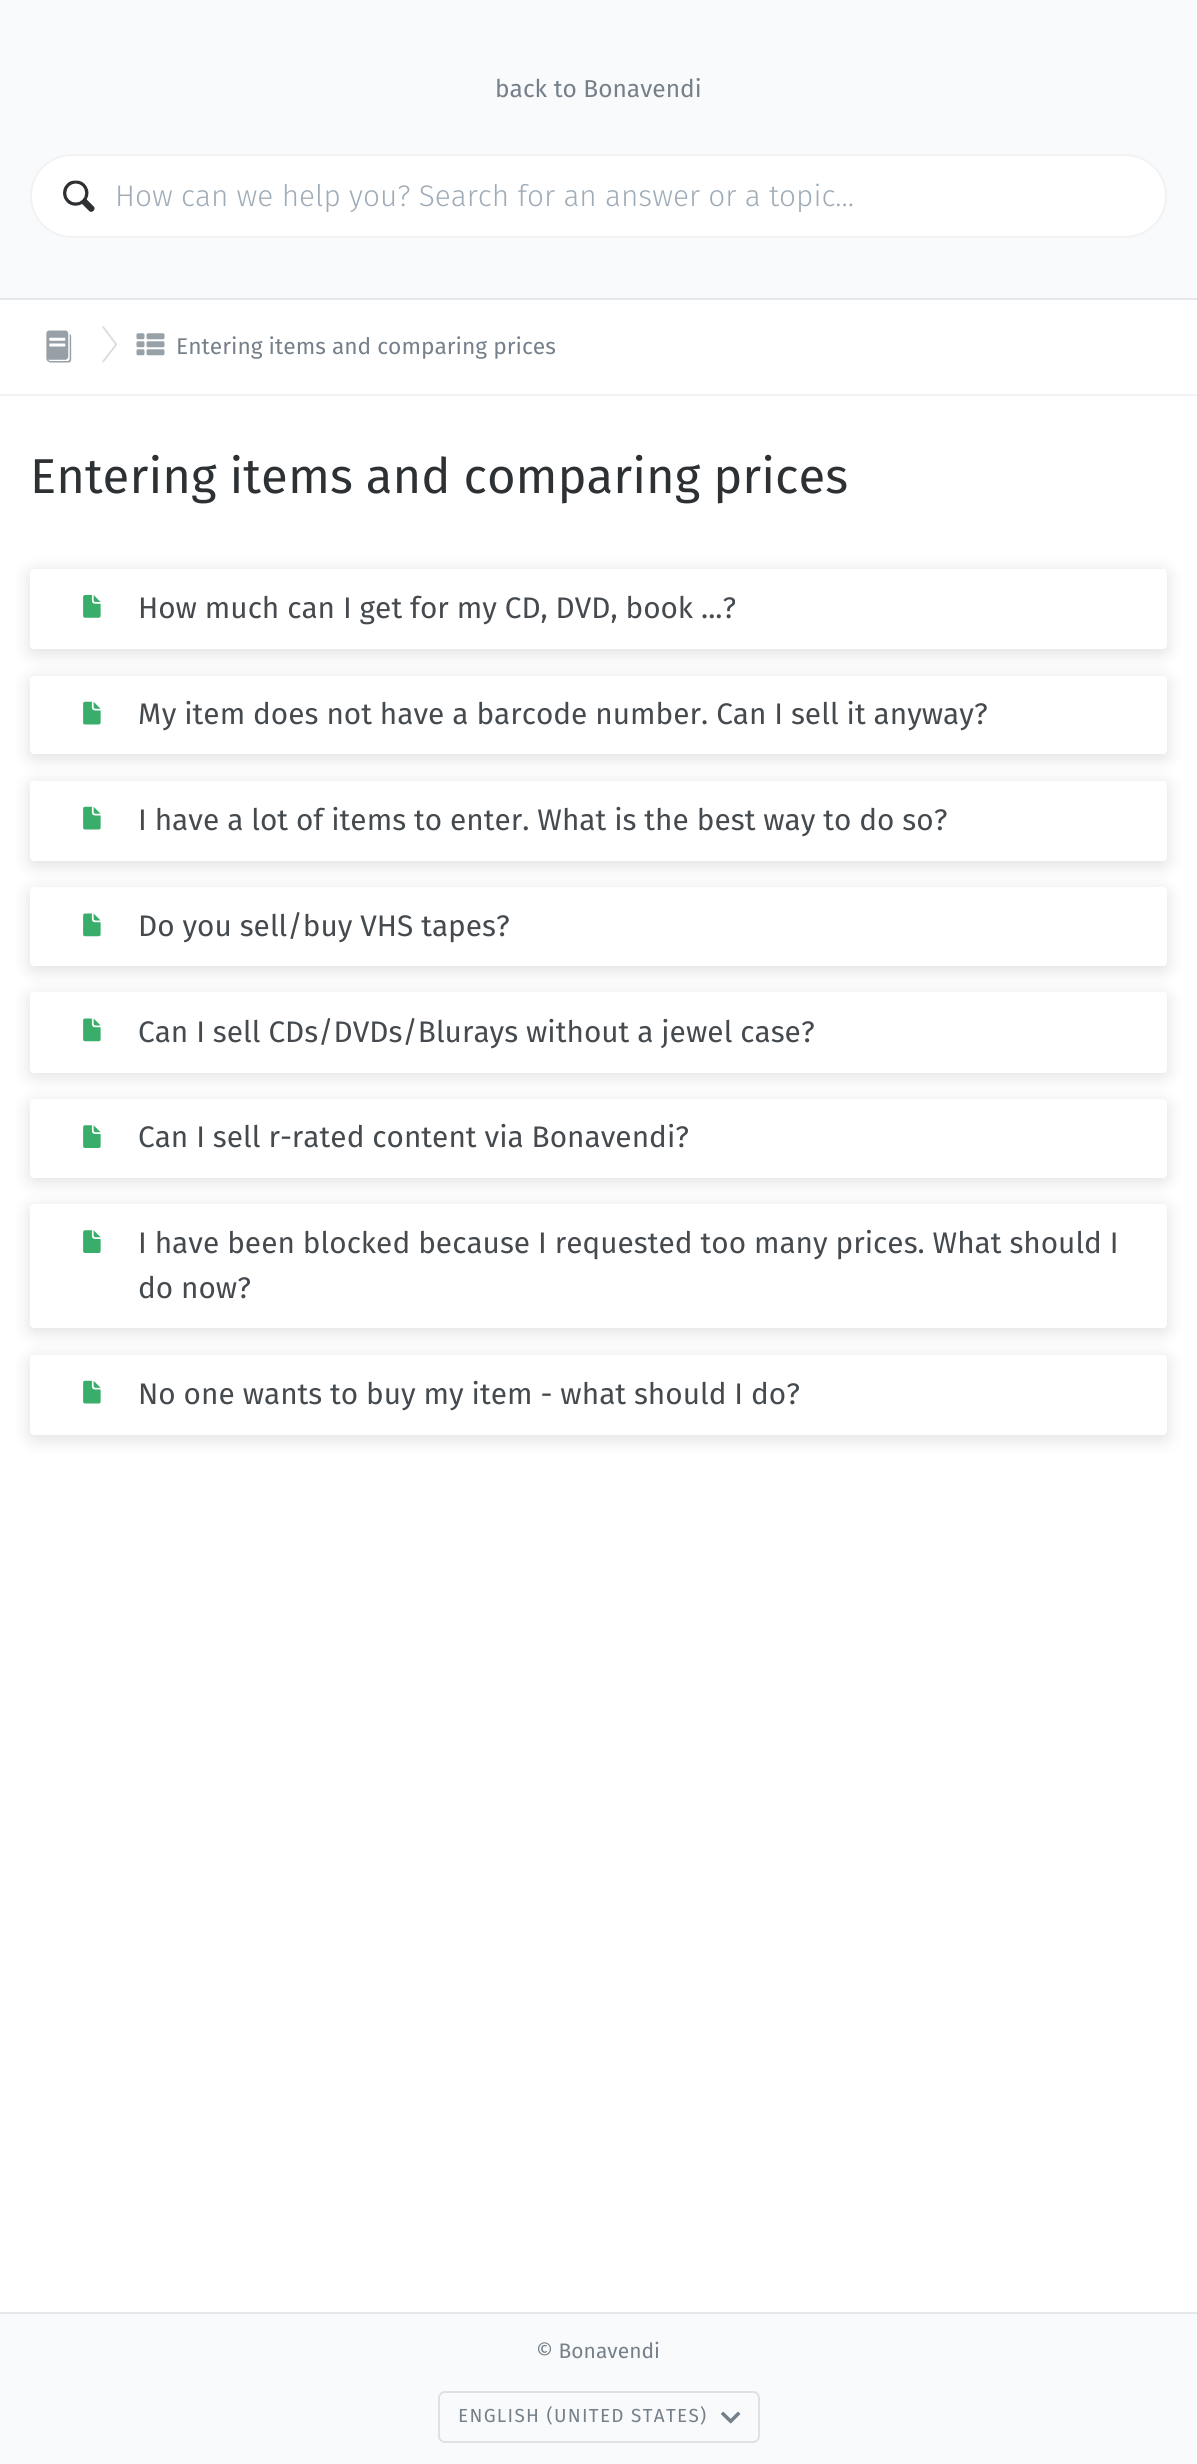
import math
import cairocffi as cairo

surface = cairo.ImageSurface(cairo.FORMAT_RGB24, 1197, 2464)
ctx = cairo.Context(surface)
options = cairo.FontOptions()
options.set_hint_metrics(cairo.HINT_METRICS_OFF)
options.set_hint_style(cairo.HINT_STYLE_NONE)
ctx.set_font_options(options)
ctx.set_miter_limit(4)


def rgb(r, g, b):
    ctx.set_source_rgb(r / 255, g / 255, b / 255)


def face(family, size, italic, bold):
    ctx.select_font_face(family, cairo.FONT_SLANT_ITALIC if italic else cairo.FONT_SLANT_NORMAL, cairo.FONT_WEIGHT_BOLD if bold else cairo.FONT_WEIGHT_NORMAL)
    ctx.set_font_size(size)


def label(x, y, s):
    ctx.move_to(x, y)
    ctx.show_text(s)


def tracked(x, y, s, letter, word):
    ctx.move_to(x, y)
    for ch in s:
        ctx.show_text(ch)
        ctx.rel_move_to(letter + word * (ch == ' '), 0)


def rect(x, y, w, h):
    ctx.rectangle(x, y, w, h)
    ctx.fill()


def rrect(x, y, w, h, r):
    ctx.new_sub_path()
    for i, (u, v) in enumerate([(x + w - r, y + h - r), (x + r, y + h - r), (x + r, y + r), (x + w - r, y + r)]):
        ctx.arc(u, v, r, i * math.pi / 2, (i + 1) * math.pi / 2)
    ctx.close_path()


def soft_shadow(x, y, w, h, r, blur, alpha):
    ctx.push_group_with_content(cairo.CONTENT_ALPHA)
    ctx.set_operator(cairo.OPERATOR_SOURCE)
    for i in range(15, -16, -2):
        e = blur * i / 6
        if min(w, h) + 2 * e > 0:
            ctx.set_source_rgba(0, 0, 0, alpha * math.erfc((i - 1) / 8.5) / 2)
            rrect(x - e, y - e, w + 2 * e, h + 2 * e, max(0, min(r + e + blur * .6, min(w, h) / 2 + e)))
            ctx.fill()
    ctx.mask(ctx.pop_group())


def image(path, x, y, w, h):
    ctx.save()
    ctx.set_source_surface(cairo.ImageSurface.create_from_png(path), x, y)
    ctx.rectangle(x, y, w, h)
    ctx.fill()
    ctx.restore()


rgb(255, 255, 255)
ctx.paint()
rgb(249, 250, 251)
rect(0, 0, 1197, 298)
rgb(229, 232, 235)
rect(0, 298, 1197, 2)
face('Fira Sans', 24.5, 0, 0)
rgb(117, 128, 138)
label(495, 97, 'back to Bonavendi')
rgb(255, 255, 255)
rrect(31, 155, 1135, 82, 41)
ctx.fill_preserve()
rgb(241, 242, 244)
ctx.stroke()
image('image0.png', 63, 180, 32, 32)
face('Fira Sans Light', 29.75, 0, 0)
rgb(159, 172, 183)
label(115, 206, 'How can we help you? Search for an answer or a topic…')
rgb(241, 242, 244)
rect(0, 394, 1197, 2)
image('image1.png', 46, 330, 26, 33)
rgb(218, 219, 220)
ctx.new_path()
ctx.move_to(102, 327)
ctx.line_to(103.5, 326)
ctx.line_to(117, 344)
ctx.line_to(115.5, 345)
ctx.close_path()
ctx.fill()
ctx.set_source_rgba(0.271, 0.29, 0.31, 0.2)
ctx.new_path()
ctx.move_to(115.5, 344)
ctx.line_to(117, 345)
ctx.line_to(103.5, 362.5)
ctx.line_to(102, 361.5)
ctx.close_path()
ctx.fill()
image('image2.png', 136, 333, 29, 23)
face('Fira Sans', 22.75, 0, 0)
rgb(117, 128, 138)
label(176, 354, 'Entering items and comparing prices')
face('Fira Sans', 49, 0, 0)
rgb(45, 49, 52)
label(30, 493, 'Entering items and comparing prices')
ctx.save()
ctx.set_fill_rule(cairo.FILL_RULE_EVEN_ODD)
ctx.new_path()
ctx.move_to(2, 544)
ctx.line_to(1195, 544)
ctx.line_to(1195, 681)
ctx.line_to(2, 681)
ctx.close_path()
ctx.move_to(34, 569)
ctx.line_to(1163, 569)
ctx.curve_to(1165, 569, 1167, 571, 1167, 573)
ctx.line_to(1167, 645)
ctx.curve_to(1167, 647, 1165, 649, 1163, 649)
ctx.line_to(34, 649)
ctx.curve_to(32, 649, 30, 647, 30, 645)
ctx.line_to(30, 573)
ctx.curve_to(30, 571, 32, 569, 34, 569)
ctx.close_path()
ctx.clip()
rgb(0, 0, 0)
soft_shadow(30, 572, 1137, 81, 4, 9, 0.13)
ctx.restore()
image('image3.png', 83, 595, 18, 23)
face('Fira Sans', 29.75, 0, 0)
rgb(69, 74, 79)
label(138, 618, 'How much can I get for my CD, DVD, book ...?')
ctx.save()
ctx.set_fill_rule(cairo.FILL_RULE_EVEN_ODD)
ctx.new_path()
ctx.move_to(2, 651)
ctx.line_to(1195, 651)
ctx.line_to(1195, 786)
ctx.line_to(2, 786)
ctx.close_path()
ctx.move_to(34, 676)
ctx.line_to(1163, 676)
ctx.curve_to(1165, 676, 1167, 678, 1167, 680)
ctx.line_to(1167, 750)
ctx.curve_to(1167, 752, 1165, 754, 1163, 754)
ctx.line_to(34, 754)
ctx.curve_to(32, 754, 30, 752, 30, 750)
ctx.line_to(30, 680)
ctx.curve_to(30, 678, 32, 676, 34, 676)
ctx.close_path()
ctx.clip()
rgb(0, 0, 0)
soft_shadow(30, 679, 1137, 79, 4, 9, 0.13)
ctx.restore()
image('image4.png', 83, 701, 18, 24)
label(138, 724, 'My item does not have a barcode number. Can I sell it anyway?')
ctx.save()
ctx.set_fill_rule(cairo.FILL_RULE_EVEN_ODD)
ctx.new_path()
ctx.move_to(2, 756)
ctx.line_to(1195, 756)
ctx.line_to(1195, 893)
ctx.line_to(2, 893)
ctx.close_path()
ctx.move_to(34, 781)
ctx.line_to(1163, 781)
ctx.curve_to(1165, 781, 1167, 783, 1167, 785)
ctx.line_to(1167, 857)
ctx.curve_to(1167, 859, 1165, 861, 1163, 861)
ctx.line_to(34, 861)
ctx.curve_to(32, 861, 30, 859, 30, 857)
ctx.line_to(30, 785)
ctx.curve_to(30, 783, 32, 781, 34, 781)
ctx.close_path()
ctx.clip()
rgb(0, 0, 0)
soft_shadow(30, 784, 1137, 81, 4, 9, 0.13)
ctx.restore()
image('image4.png', 83, 806, 18, 24)
label(138, 830, 'I have a lot of items to enter. What is the best way to do so?')
rgb(0, 0, 0)
soft_shadow(30, 891, 1137, 79, 4, 9, 0.13)
rgb(255, 255, 255)
rrect(30, 887, 1137, 79, 4)
ctx.fill()
image('image5.png', 83, 913, 18, 24)
rgb(69, 74, 79)
label(138, 936, 'Do you sell/buy VHS tapes?')
rgb(0, 0, 0)
soft_shadow(30, 996, 1137, 80, 4, 9, 0.13)
rgb(255, 255, 255)
rrect(30, 992, 1137, 81, 4)
ctx.fill()
image('image5.png', 83, 1018, 18, 24)
rgb(69, 74, 79)
label(138, 1042, 'Can I sell CDs/DVDs/Blurays without a jewel case?')
rgb(0, 0, 0)
soft_shadow(30, 1103, 1137, 78, 4, 9, 0.13)
rgb(255, 255, 255)
rrect(30, 1099, 1137, 79, 4)
ctx.fill()
image('image6.png', 83, 1125, 18, 23)
rgb(69, 74, 79)
label(138, 1147, 'Can I sell r-rated content via Bonavendi?')
ctx.save()
ctx.set_fill_rule(cairo.FILL_RULE_EVEN_ODD)
ctx.new_path()
ctx.move_to(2, 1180)
ctx.line_to(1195, 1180)
ctx.line_to(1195, 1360)
ctx.line_to(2, 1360)
ctx.close_path()
ctx.move_to(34, 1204)
ctx.line_to(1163, 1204)
ctx.curve_to(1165, 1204, 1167, 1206, 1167, 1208)
ctx.line_to(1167, 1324)
ctx.curve_to(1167, 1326, 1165, 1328, 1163, 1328)
ctx.line_to(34, 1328)
ctx.curve_to(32, 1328, 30, 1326, 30, 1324)
ctx.line_to(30, 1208)
ctx.curve_to(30, 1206, 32, 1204, 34, 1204)
ctx.close_path()
ctx.clip()
rgb(0, 0, 0)
soft_shadow(30, 1208, 1137, 124, 4, 9, 0.13)
ctx.restore()
image('image6.png', 83, 1230, 18, 23)
label(138, 1253, 'I have been blocked because I requested too many prices. What should I')
label(138, 1298, 'do now?')
ctx.save()
ctx.set_fill_rule(cairo.FILL_RULE_EVEN_ODD)
ctx.new_path()
ctx.move_to(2, 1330)
ctx.line_to(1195, 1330)
ctx.line_to(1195, 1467)
ctx.line_to(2, 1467)
ctx.close_path()
ctx.move_to(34, 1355)
ctx.line_to(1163, 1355)
ctx.curve_to(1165, 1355, 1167, 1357, 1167, 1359)
ctx.line_to(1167, 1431)
ctx.curve_to(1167, 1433, 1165, 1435, 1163, 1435)
ctx.line_to(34, 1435)
ctx.curve_to(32, 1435, 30, 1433, 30, 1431)
ctx.line_to(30, 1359)
ctx.curve_to(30, 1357, 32, 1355, 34, 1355)
ctx.close_path()
ctx.clip()
rgb(0, 0, 0)
soft_shadow(30, 1358, 1137, 81, 4, 9, 0.13)
ctx.restore()
image('image4.png', 83, 1380, 18, 24)
label(138, 1404, 'No one wants to buy my item - what should I do?')
rgb(249, 250, 251)
rect(0, 2314, 1197, 150)
rgb(229, 232, 235)
rect(0, 2312, 1197, 2)
face('Fira Sans', 21, 0, 0)
rgb(117, 128, 138)
label(536, 2358, '© Bonavendi')
rrect(439, 2392, 320, 50, 6)
rgb(224, 225, 226)
ctx.stroke()
face('Fira Sans', 18.9, 0, 0)
rgb(117, 128, 138)
tracked(458, 2422, 'ENGLISH (UNITED STATES)', 1.3, 0)
image('image7.png', 721, 2411, 20, 13)
surface.write_to_png('render.png')
